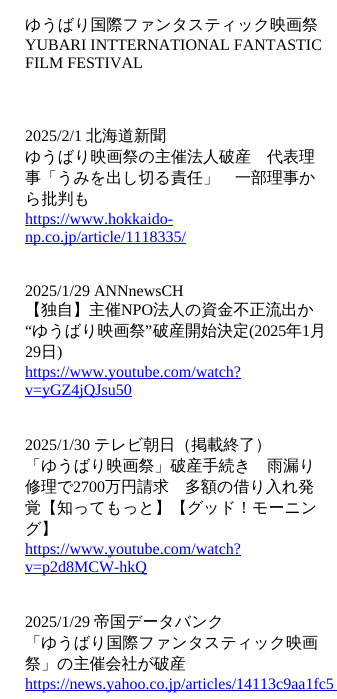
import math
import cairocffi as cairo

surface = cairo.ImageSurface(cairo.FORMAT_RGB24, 337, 699)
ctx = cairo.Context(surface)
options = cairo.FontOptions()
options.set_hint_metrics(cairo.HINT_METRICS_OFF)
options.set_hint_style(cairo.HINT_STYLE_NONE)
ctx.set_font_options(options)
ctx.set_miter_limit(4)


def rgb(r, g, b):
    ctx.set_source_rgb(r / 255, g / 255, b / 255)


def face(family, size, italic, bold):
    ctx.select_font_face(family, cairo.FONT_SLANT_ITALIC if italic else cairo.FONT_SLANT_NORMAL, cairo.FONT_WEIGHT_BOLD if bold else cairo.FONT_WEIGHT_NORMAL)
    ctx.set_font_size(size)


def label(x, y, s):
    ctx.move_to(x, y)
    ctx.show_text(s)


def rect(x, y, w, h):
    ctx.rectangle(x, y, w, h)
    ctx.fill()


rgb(255, 255, 255)
ctx.paint()
face('WenQuanYi Zen Hei Medium', 16, 0, 0)
rgb(0, 0, 0)
label(25, 30, 'ゆうばり国際ファンタスティック映画祭')
face('Liberation Serif', 16, 0, 0)
label(25, 50, 'YUBARI INTTERNATIONAL FANTASTIC')
label(25, 68, 'FILM FESTIVAL')
label(25, 141, '2025/2/1')
face('WenQuanYi Zen Hei Medium', 16, 0, 0)
label(86, 141, '北海道新聞')
label(25, 162, 'ゆうばり映画祭の主催法人破産　代表理')
label(25, 183, '事「うみを出し切る責任」　一部理事か')
label(25, 204, 'ら批判も')
rgb(0, 0, 238)
rect(25, 225, 148, 1)
face('Liberation Serif', 16, 0, 0)
label(25, 224, 'https://www.hokkaido-')
rect(25, 243, 161, 1)
label(25, 242, 'np.co.jp/article/1118335/')
rgb(0, 0, 0)
label(25, 296, '2025/1/29 ANNnewsCH')
face('WenQuanYi Zen Hei Medium', 16, 0, 0)
label(25, 315, '【独自】主催')
face('Liberation Serif', 16, 0, 0)
label(121, 315, 'NPO')
face('WenQuanYi Zen Hei Medium', 16, 0, 0)
label(153, 315, '法人の資金不正流出か')
face('Liberation Serif', 16, 0, 0)
label(25, 336, '“')
face('WenQuanYi Zen Hei Medium', 16, 0, 0)
label(32, 336, 'ゆうばり映画祭')
face('Liberation Serif', 16, 0, 0)
label(145, 336, '”')
face('WenQuanYi Zen Hei Medium', 16, 0, 0)
label(153, 336, '破産開始決定')
face('Liberation Serif', 16, 0, 0)
label(249, 336, '(2025')
face('WenQuanYi Zen Hei Medium', 16, 0, 0)
label(286, 336, '年')
face('Liberation Serif', 16, 0, 0)
label(302, 336, '1')
face('WenQuanYi Zen Hei Medium', 16, 0, 0)
label(310, 336, '月')
face('Liberation Serif', 16, 0, 0)
label(25, 357, '29')
face('WenQuanYi Zen Hei Medium', 16, 0, 0)
label(41, 357, '日')
face('Liberation Serif', 16, 0, 0)
label(57, 357, ')')
rgb(0, 0, 238)
rect(25, 378, 216, 1)
label(25, 377, 'https://www.youtube.com/watch?')
rect(25, 396, 107, 1)
label(25, 395, 'v=yGZ4jQJsu50')
rgb(0, 0, 0)
label(25, 450, '2025/1/30')
face('WenQuanYi Zen Hei Medium', 16, 0, 0)
label(94, 450, 'テレビ朝日（掲載終了）')
label(25, 471, '「ゆうばり映画祭」破産手続き　雨漏り')
label(25, 492, '修理で')
face('Liberation Serif', 16, 0, 0)
label(73, 492, '2700')
face('WenQuanYi Zen Hei Medium', 16, 0, 0)
label(105, 492, '万円請求　多額の借り入れ発')
label(25, 513, '覚【知ってもっと】【グッド！モーニン')
label(25, 534, 'グ】')
rgb(0, 0, 238)
rect(25, 555, 216, 1)
face('Liberation Serif', 16, 0, 0)
label(25, 554, 'https://www.youtube.com/watch?')
rect(25, 573, 122, 1)
label(25, 572, 'v=p2d8MCW-hkQ')
rgb(0, 0, 0)
label(25, 627, '2025/1/29')
face('WenQuanYi Zen Hei Medium', 16, 0, 0)
label(94, 627, '帝国データバンク')
label(25, 648, '「ゆうばり国際ファンタスティック映画')
label(25, 669, '祭」の主催会社が破産')
rgb(0, 0, 238)
rect(25, 690, 312, 1)
face('Liberation Serif', 16, 0, 0)
label(25, 689, 'https://news.yahoo.co.jp/articles/14113c9aa1fc5')
surface.write_to_png('render.png')
